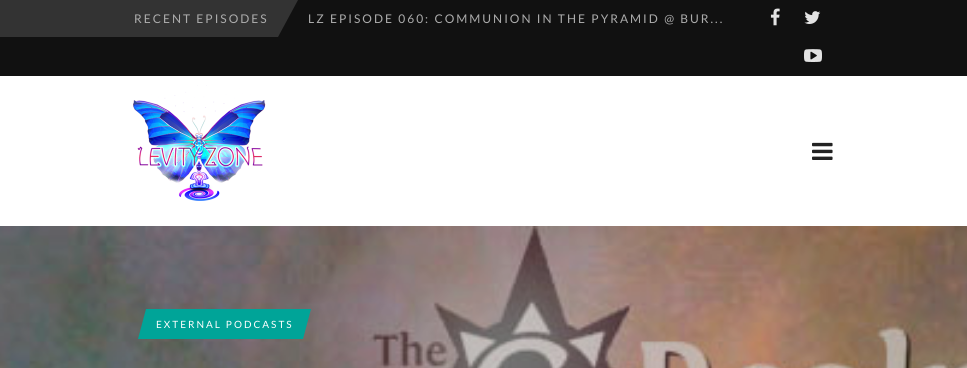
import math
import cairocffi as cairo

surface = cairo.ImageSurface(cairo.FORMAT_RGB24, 967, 368)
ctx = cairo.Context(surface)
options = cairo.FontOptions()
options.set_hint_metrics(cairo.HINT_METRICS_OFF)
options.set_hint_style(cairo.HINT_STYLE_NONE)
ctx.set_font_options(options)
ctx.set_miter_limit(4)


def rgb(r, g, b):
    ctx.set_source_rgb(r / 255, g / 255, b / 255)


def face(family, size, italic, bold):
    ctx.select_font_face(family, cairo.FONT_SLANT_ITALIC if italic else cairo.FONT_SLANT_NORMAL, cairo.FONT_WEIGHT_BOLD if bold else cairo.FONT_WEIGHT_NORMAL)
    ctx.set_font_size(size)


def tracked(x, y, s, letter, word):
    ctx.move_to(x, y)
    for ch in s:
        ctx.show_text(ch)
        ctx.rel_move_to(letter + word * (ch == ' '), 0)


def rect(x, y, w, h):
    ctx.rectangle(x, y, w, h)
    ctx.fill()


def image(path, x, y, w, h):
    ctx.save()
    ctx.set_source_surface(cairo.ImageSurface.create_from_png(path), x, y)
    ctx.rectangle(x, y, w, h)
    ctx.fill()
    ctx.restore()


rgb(255, 255, 255)
ctx.paint()
rgb(17, 17, 17)
rect(0, 0, 967, 76)
rgb(51, 51, 51)
rect(0, 0, 278, 37)
face('Lato', 12, 0, 0)
rgb(172, 172, 172)
tracked(134, 23, 'RECENT EPISODES', 2, 0)
rgb(51, 51, 51)
ctx.new_path()
ctx.move_to(278, 0)
ctx.line_to(298, 0)
ctx.line_to(278, 37)
ctx.close_path()
ctx.fill()
rgb(172, 172, 172)
tracked(308, 23, 'LZ EPISODE 060: COMMUNION IN THE PYRAMID @ BUR...', 2, 0)
image('image0.png', 770, 8, 10, 18)
image('image1.png', 804, 11, 17, 13)
image('image2.png', 804, 49, 18, 13)
image('image3.png', 133, 85, 133, 116)
image('image4.png', 812, 142, 21, 18)
image('image5.png', 0, 226, 967, 142)
rgb(0, 164, 152)
rect(146, 309, 157, 30)
ctx.new_path()
ctx.move_to(146, 309)
ctx.line_to(146, 339)
ctx.line_to(138, 339)
ctx.close_path()
ctx.fill()
face('Lato', 10, 0, 0)
rgb(255, 255, 255)
tracked(156, 328, 'EXTERNAL PODCASTS', 2, 0)
rgb(0, 164, 152)
ctx.new_path()
ctx.move_to(303, 339)
ctx.line_to(303, 309)
ctx.line_to(311, 309)
ctx.close_path()
ctx.fill()
surface.write_to_png('render.png')
